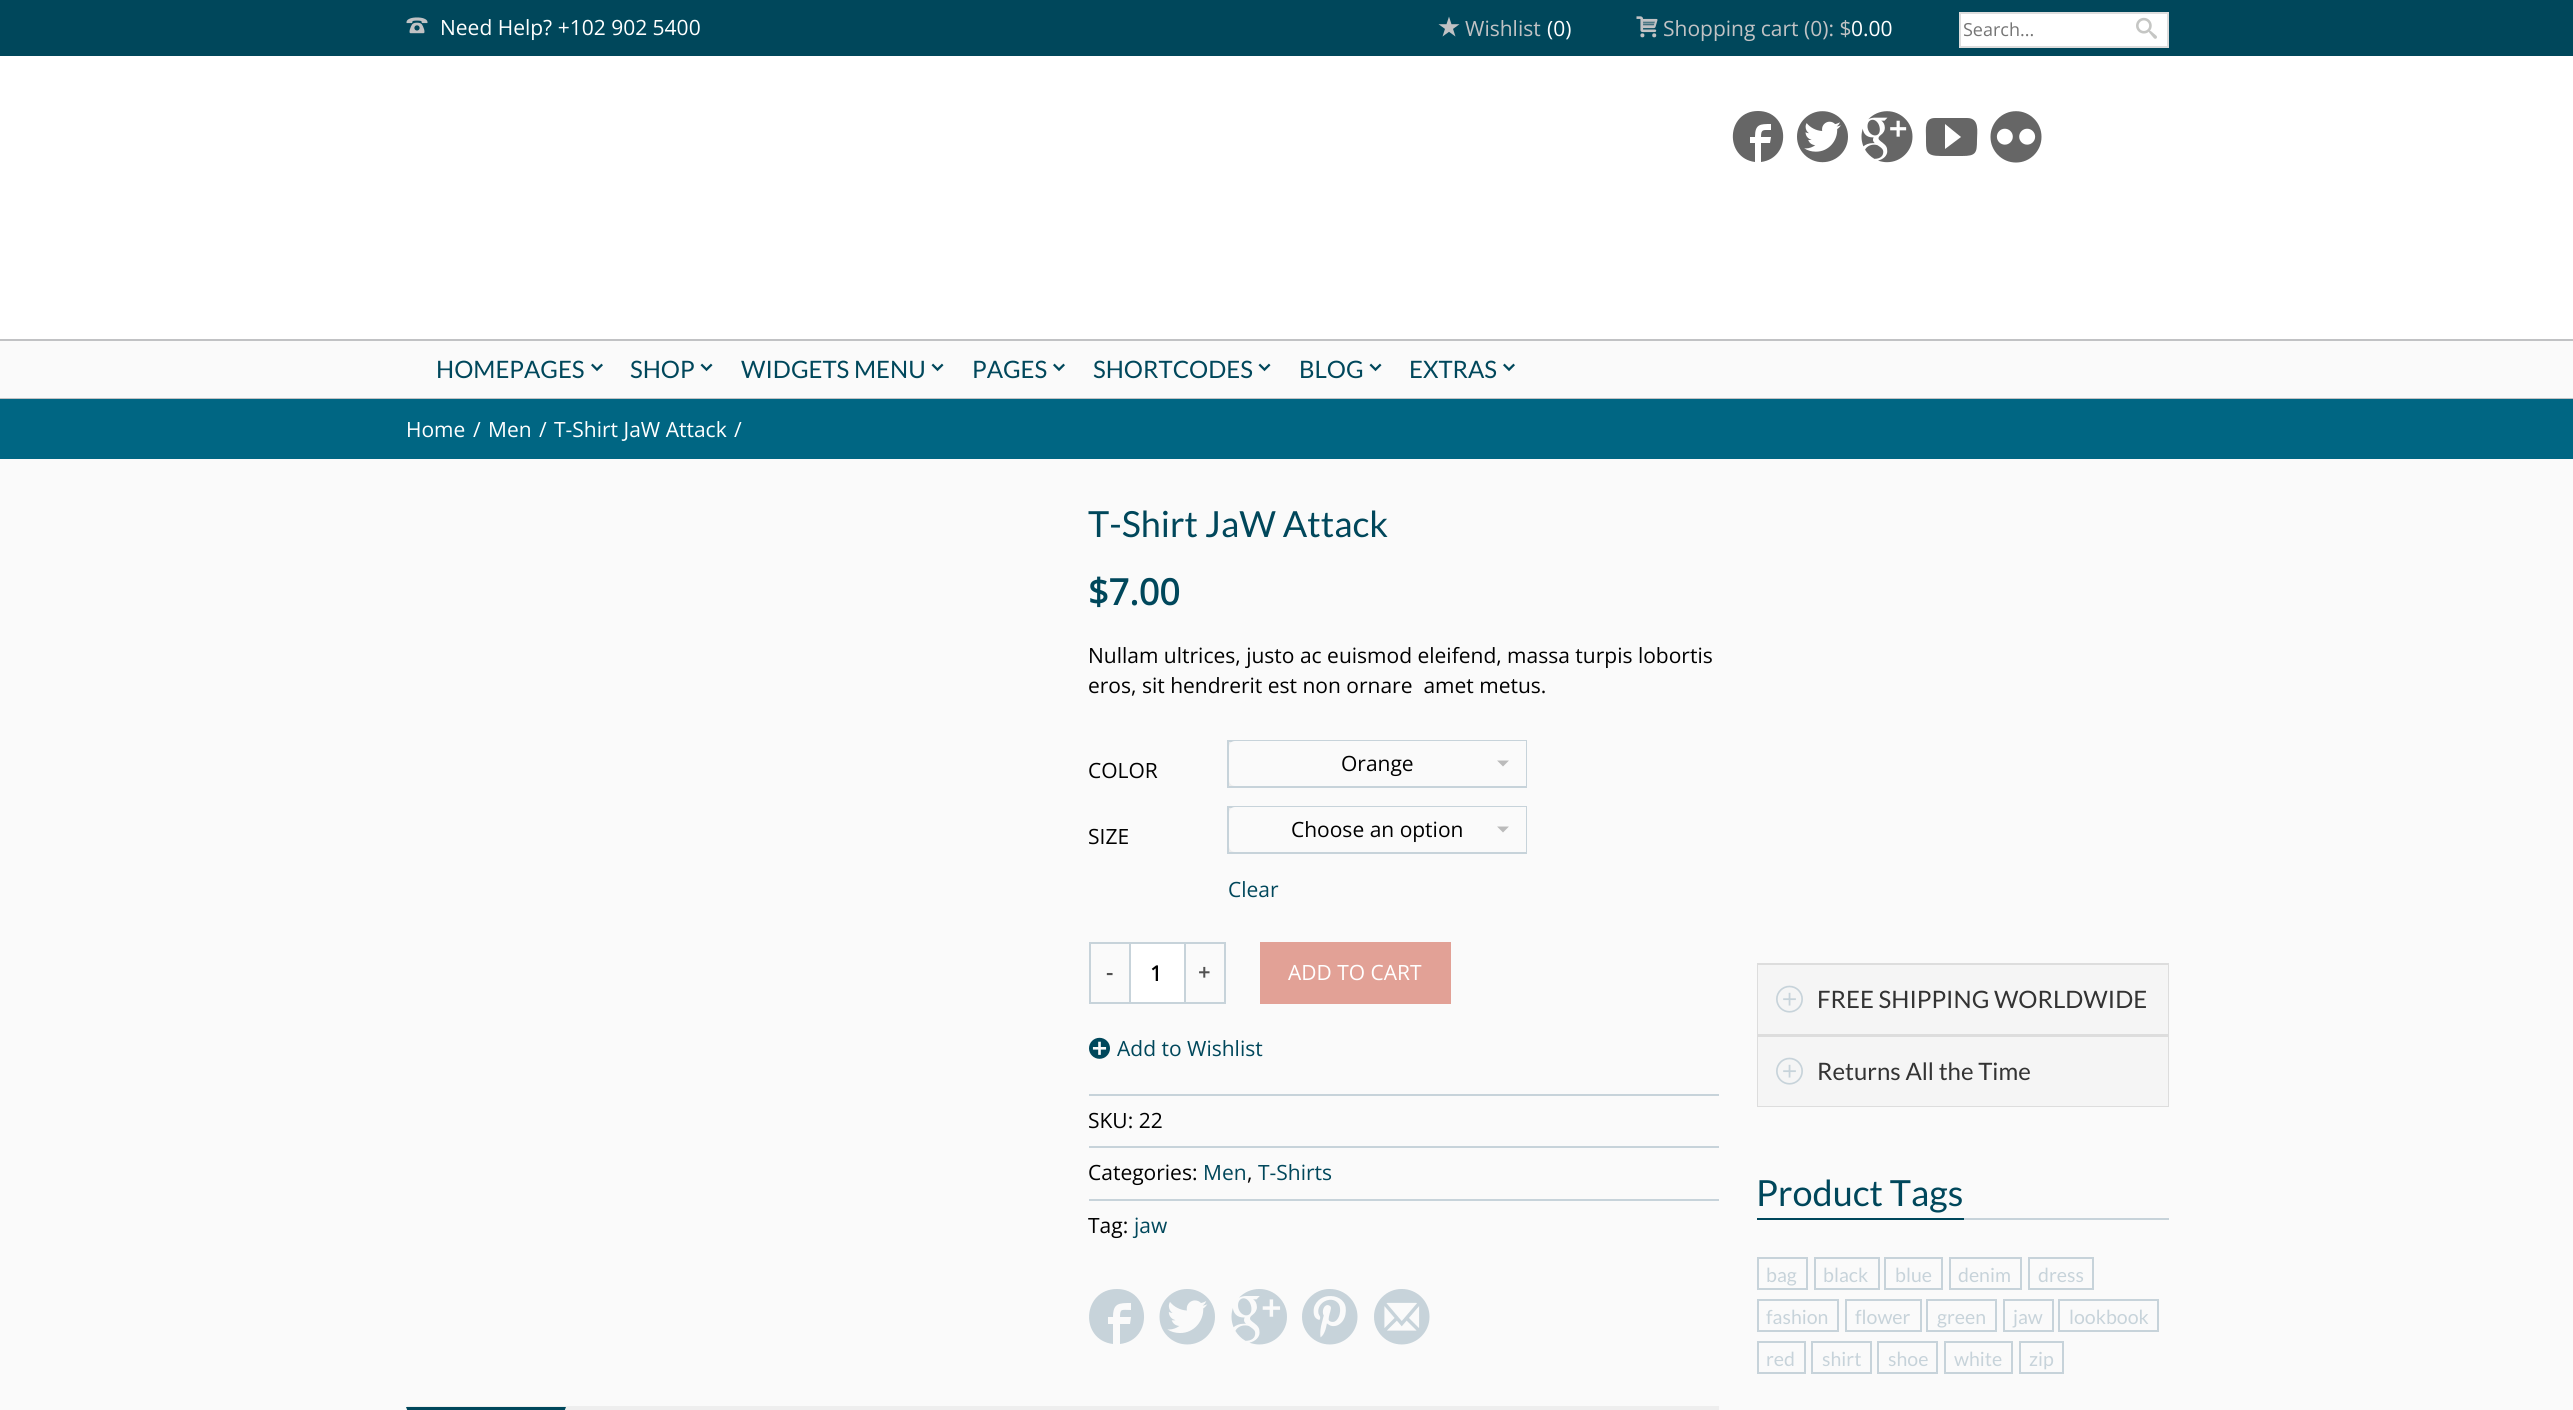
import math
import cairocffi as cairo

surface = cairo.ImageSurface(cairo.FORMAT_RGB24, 2573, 1410)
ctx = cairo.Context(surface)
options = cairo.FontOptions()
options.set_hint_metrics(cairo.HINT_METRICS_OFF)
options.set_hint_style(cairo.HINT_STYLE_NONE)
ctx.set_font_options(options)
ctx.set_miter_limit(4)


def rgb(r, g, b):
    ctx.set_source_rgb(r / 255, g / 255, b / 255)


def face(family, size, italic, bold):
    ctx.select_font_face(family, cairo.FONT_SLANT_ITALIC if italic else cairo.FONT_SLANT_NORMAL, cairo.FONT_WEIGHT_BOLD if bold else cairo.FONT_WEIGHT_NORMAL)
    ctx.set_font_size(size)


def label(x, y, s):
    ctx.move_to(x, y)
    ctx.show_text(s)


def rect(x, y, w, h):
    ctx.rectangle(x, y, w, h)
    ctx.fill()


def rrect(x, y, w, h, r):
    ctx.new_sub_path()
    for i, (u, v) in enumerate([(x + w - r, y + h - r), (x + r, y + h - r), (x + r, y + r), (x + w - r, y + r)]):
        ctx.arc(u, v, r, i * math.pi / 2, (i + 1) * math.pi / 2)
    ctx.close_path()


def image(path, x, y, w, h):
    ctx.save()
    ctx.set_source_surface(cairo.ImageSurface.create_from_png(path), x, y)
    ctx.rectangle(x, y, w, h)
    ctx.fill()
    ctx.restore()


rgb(250, 250, 250)
ctx.paint()
rgb(0, 71, 91)
rect(0, 0, 2573, 56)
image('image0.png', 406, 17, 22, 17)
face('Open Sans', 21, 0, 0)
rgb(255, 255, 255)
label(440, 35, 'Need Help? +102 902 5400')
image('image1.png', 1438, 16, 22, 21)
rgb(193, 194, 196)
label(1465, 36, 'Wishlist')
rgb(255, 255, 255)
label(1547, 36, '(0)')
image('image2.png', 1636, 16, 22, 22)
rgb(193, 194, 196)
label(1663, 36, 'Shopping cart (0): $')
rgb(255, 255, 255)
label(1851, 36, '0.00')
ctx.rectangle(1960, 13, 208, 34)
ctx.fill_preserve()
rgb(221, 221, 221)
ctx.stroke()
ctx.save()
ctx.rectangle(1964, 17, 201, 25)
ctx.clip()
face('Open Sans', 18, 0, 0)
rgb(117, 117, 117)
label(1963, 36, 'Search...')
ctx.restore()
image('image3.png', 2136, 17, 21, 22)
rgb(255, 255, 255)
rect(0, 56, 2573, 283)
rgb(102, 102, 102)
ctx.new_path()
ctx.move_to(1758, 111)
ctx.curve_to(1790, 111, 1792, 158, 1761, 162)
ctx.line_to(1761, 143)
ctx.line_to(1770, 143)
ctx.line_to(1771, 137)
ctx.line_to(1761, 137)
ctx.curve_to(1761, 129, 1763, 130, 1771, 130)
ctx.line_to(1771, 124)
ctx.curve_to(1760, 124, 1755, 124, 1755, 137)
ctx.line_to(1750, 137)
ctx.line_to(1750, 143)
ctx.line_to(1755, 143)
ctx.line_to(1755, 162)
ctx.curve_to(1724, 158, 1726, 111, 1758, 111)
ctx.close_path()
ctx.fill()
image('image4.png', 1797, 111, 51, 52)
image('image5.png', 1861, 111, 52, 52)
ctx.new_path()
ctx.move_to(1967, 118)
ctx.line_to(1935, 118)
ctx.curve_to(1924, 118, 1926, 129, 1926, 137)
ctx.curve_to(1926, 151, 1925, 156, 1941, 156)
ctx.line_to(1962, 156)
ctx.curve_to(1976, 156, 1977, 153, 1977, 140)
ctx.curve_to(1977, 132, 1980, 118, 1967, 118)
ctx.close_path()
ctx.move_to(1945, 149)
ctx.line_to(1945, 124)
ctx.line_to(1961, 137)
ctx.close_path()
ctx.fill()
image('image6.png', 1990, 111, 52, 52)
rgb(193, 194, 196)
rect(0, 339, 2573, 2)
rect(0, 398, 2573, 1)
face('Lato', 24, 0, 0)
rgb(0, 71, 91)
label(436, 378, 'HOMEPAGES')
image('image7.png', 591, 363, 12, 9)
label(630, 378, 'SHOP')
image('image8.png', 700, 363, 13, 9)
label(741, 378, 'WIDGETS MENU')
image('image8.png', 931, 363, 13, 9)
label(972, 378, 'PAGES')
image('image7.png', 1053, 363, 12, 9)
label(1093, 378, 'SHORTCODES')
image('image8.png', 1258, 363, 13, 9)
label(1299, 378, 'BLOG')
image('image8.png', 1369, 363, 13, 9)
label(1409, 378, 'EXTRAS')
image('image7.png', 1503, 363, 12, 9)
rgb(0, 102, 131)
rect(0, 399, 2573, 60)
face('Open Sans', 21, 0, 0)
rgb(255, 255, 255)
label(406, 437, 'Home')
label(473, 437, '/')
label(488, 437, 'Men')
label(539, 437, '/')
label(554, 437, 'T-Shirt JaW Attack')
label(734, 437, '/')
face('Lato', 36, 0, 0)
rgb(0, 71, 91)
label(1088, 537, 'T-Shirt JaW Attack')
face('Open Sans', 36, 0, 1)
label(1088, 605, '$7.00')
face('Open Sans', 21, 0, 0)
rgb(0, 0, 0)
label(1088, 663, 'Nullam ultrices, justo ac euismod eleifend, massa turpis lobortis')
label(1088, 693, 'eros, sit hendrerit est non ornare  amet metus.')
label(1088, 778, 'COLOR')
rgb(238, 238, 238)
rect(1229, 742, 6, 44)
ctx.rectangle(1228, 741, 298, 46)
rgb(199, 211, 218)
ctx.stroke()
rgb(250, 250, 250)
rrect(1229, 741, 297, 45, 6)
ctx.fill()
rgb(0, 0, 0)
label(1341, 771, 'Orange')
rgb(250, 250, 250)
rect(1521, 741, 5, 45)
rgb(187, 187, 187)
ctx.new_path()
ctx.move_to(1497, 760.5)
ctx.line_to(1509, 760.5)
ctx.line_to(1503, 766.5)
ctx.close_path()
ctx.fill()
rgb(0, 0, 0)
label(1088, 844, 'SIZE')
rgb(238, 238, 238)
rect(1229, 808, 6, 44)
ctx.rectangle(1228, 807, 298, 46)
rgb(199, 211, 218)
ctx.stroke()
rgb(250, 250, 250)
rrect(1229, 807, 297, 45, 6)
ctx.fill()
rgb(0, 0, 0)
label(1291, 837, 'Choose an option')
rgb(250, 250, 250)
rect(1521, 807, 5, 45)
rgb(187, 187, 187)
ctx.new_path()
ctx.move_to(1497, 826.5)
ctx.line_to(1509, 826.5)
ctx.line_to(1503, 832.5)
ctx.close_path()
ctx.fill()
rgb(0, 71, 91)
label(1228, 897, 'Clear')
ctx.rectangle(1090, 943, 40, 60)
rgb(199, 211, 218)
ctx.stroke()
face('Open Sans', 21, 0, 1)
rgb(81, 81, 81)
label(1106, 980, '-')
rgb(255, 255, 255)
rect(1131, 944, 53, 58)
rgb(199, 211, 218)
rect(1131, 942, 53, 2)
rect(1131, 1002, 53, 2)
rgb(0, 0, 0)
label(1150, 981, '1')
ctx.rectangle(1185, 943, 40, 60)
rgb(199, 211, 218)
ctx.stroke()
rgb(81, 81, 81)
label(1198, 980, '+')
rgb(226, 161, 150)
rect(1260, 942, 191, 62)
face('Open Sans', 21, 0, 0)
rgb(255, 255, 255)
label(1288, 980, 'ADD TO CART')
image('image9.png', 1089, 1037, 21, 22)
rgb(0, 71, 91)
label(1117, 1056, 'Add to Wishlist')
rgb(199, 211, 218)
rect(1089, 1094, 630, 2)
rgb(0, 0, 0)
label(1088, 1128, 'SKU: 22')
rgb(199, 211, 218)
rect(1089, 1146, 630, 2)
rgb(0, 0, 0)
label(1088, 1180, 'Categories:')
rgb(0, 71, 91)
label(1203, 1180, 'Men')
rgb(0, 0, 0)
label(1247, 1180, ',')
rgb(0, 71, 91)
label(1258, 1180, 'T-Shirts')
rgb(199, 211, 218)
rect(1089, 1199, 630, 2)
rgb(0, 0, 0)
label(1088, 1233, 'Tag:')
rgb(0, 71, 91)
label(1134, 1233, 'jaw')
rgb(199, 211, 218)
ctx.new_path()
ctx.move_to(1117, 1289)
ctx.curve_to(1151, 1289, 1154, 1340, 1120, 1344)
ctx.line_to(1120, 1324)
ctx.line_to(1130, 1324)
ctx.line_to(1131, 1317)
ctx.line_to(1120, 1317)
ctx.curve_to(1120, 1308, 1122, 1310, 1131, 1310)
ctx.line_to(1131, 1303)
ctx.curve_to(1119, 1303, 1113, 1303, 1113, 1317)
ctx.line_to(1108, 1317)
ctx.line_to(1108, 1324)
ctx.line_to(1113, 1324)
ctx.line_to(1113, 1344)
ctx.curve_to(1079, 1340, 1082, 1289, 1117, 1289)
ctx.close_path()
ctx.fill()
image('image10.png', 1159, 1289, 56, 56)
image('image11.png', 1231, 1289, 56, 56)
image('image12.png', 1302, 1289, 56, 56)
image('image13.png', 1374, 1289, 56, 56)
rgb(238, 238, 238)
rect(407, 1406, 1312, 4)
rgb(0, 71, 91)
ctx.new_path()
ctx.move_to(406, 1407)
ctx.line_to(566, 1407)
ctx.line_to(564, 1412)
ctx.line_to(408, 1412)
ctx.close_path()
ctx.fill()
ctx.rectangle(1758, 964, 410, 70)
rgb(221, 221, 221)
ctx.stroke()
rgb(245, 245, 245)
rect(1758, 965, 410, 69)
image('image14.png', 1776, 985, 27, 28)
face('Lato', 24, 0, 0)
rgb(51, 51, 51)
label(1817, 1008, 'FREE SHIPPING WORLDWIDE')
ctx.rectangle(1758, 1036, 410, 70)
rgb(221, 221, 221)
ctx.stroke()
rgb(245, 245, 245)
rect(1758, 1037, 410, 69)
image('image14.png', 1776, 1057, 27, 28)
rgb(51, 51, 51)
label(1817, 1080, 'Returns All the Time')
rgb(199, 211, 218)
rect(1964, 1218, 205, 2)
rgb(0, 71, 91)
rect(1757, 1218, 207, 2)
face('Lato', 36, 0, 0)
label(1756, 1206, 'Product Tags')
ctx.rectangle(1758, 1258, 49, 31)
rgb(199, 211, 218)
ctx.stroke()
face('Lato', 19.5, 0, 0)
label(1766, 1282, 'bag')
ctx.rectangle(1815, 1258, 64, 31)
ctx.stroke()
label(1823, 1282, 'black')
ctx.rectangle(1885, 1258, 57, 31)
ctx.stroke()
label(1895, 1282, 'blue')
ctx.rectangle(1950, 1258, 71, 31)
ctx.stroke()
label(1958, 1282, 'denim')
ctx.rectangle(2029, 1258, 64, 31)
ctx.stroke()
label(2038, 1282, 'dress')
ctx.rectangle(1758, 1300, 80, 31)
ctx.stroke()
label(1766, 1324, 'fashion')
ctx.rectangle(1846, 1300, 75, 31)
ctx.stroke()
label(1855, 1324, 'flower')
ctx.rectangle(1927, 1300, 69, 31)
ctx.stroke()
label(1937, 1324, 'green')
ctx.rectangle(2004, 1300, 49, 31)
ctx.stroke()
label(2013, 1324, 'jaw')
ctx.rectangle(2059, 1300, 99, 31)
ctx.stroke()
label(2069, 1324, 'lookbook')
ctx.rectangle(1758, 1342, 47, 31)
ctx.stroke()
label(1766, 1366, 'red')
ctx.rectangle(1812, 1342, 59, 31)
ctx.stroke()
label(1822, 1366, 'shirt')
ctx.rectangle(1878, 1342, 59, 31)
ctx.stroke()
label(1888, 1366, 'shoe')
ctx.rectangle(1945, 1342, 67, 31)
ctx.stroke()
label(1954, 1366, 'white')
ctx.rectangle(2020, 1342, 43, 31)
ctx.stroke()
label(2029, 1366, 'zip')
surface.write_to_png('render.png')
